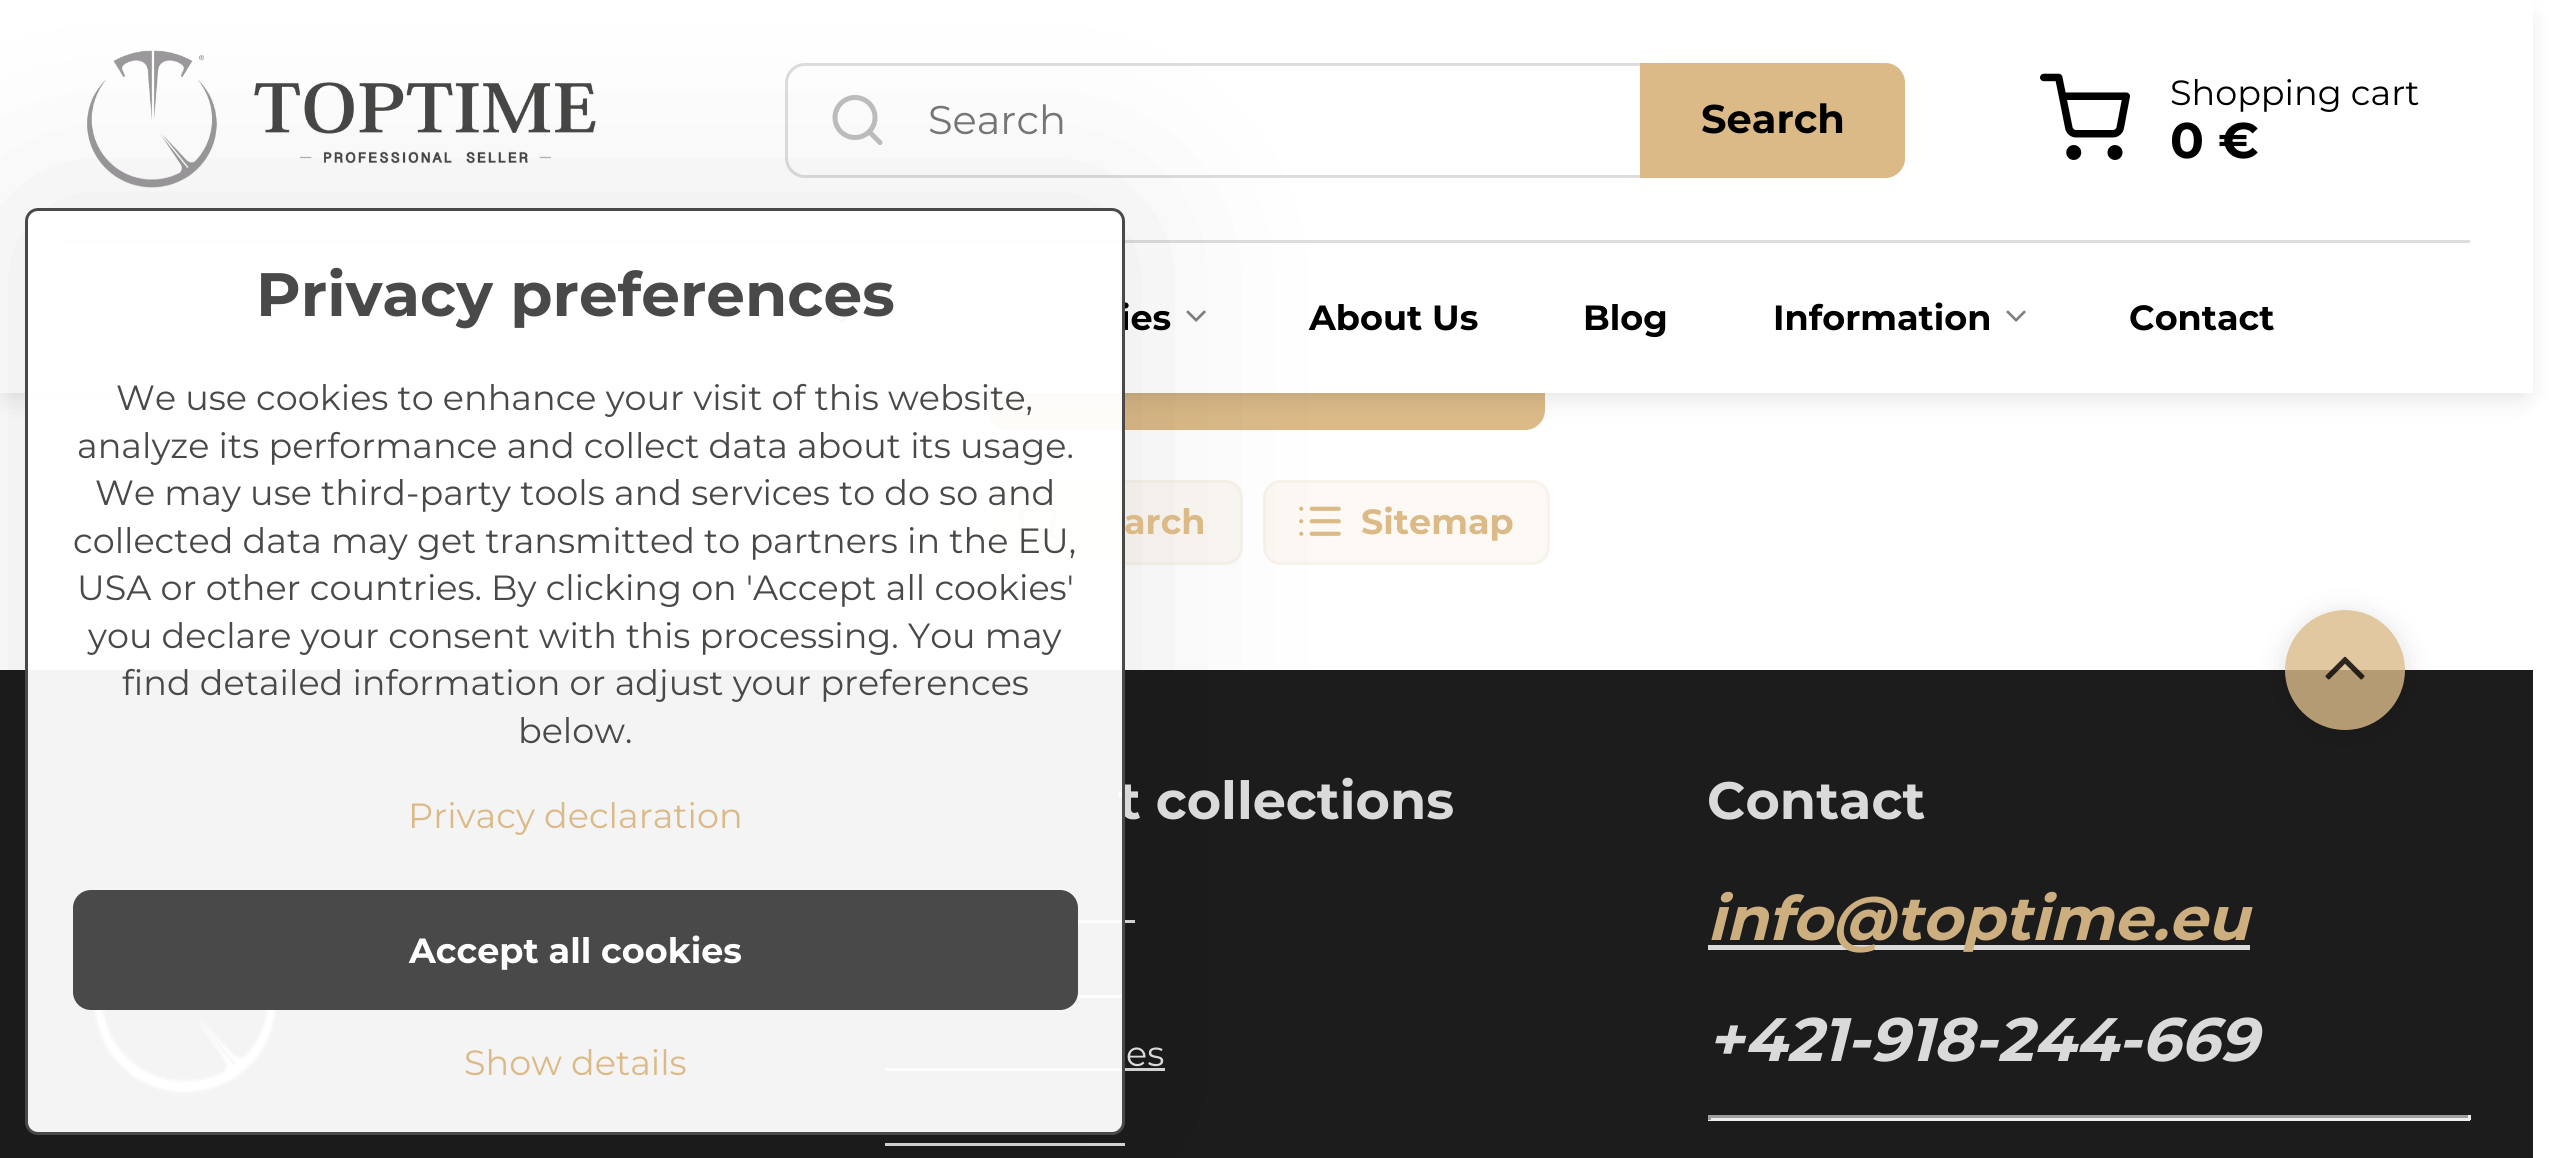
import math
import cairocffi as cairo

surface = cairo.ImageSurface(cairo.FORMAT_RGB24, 2568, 1158)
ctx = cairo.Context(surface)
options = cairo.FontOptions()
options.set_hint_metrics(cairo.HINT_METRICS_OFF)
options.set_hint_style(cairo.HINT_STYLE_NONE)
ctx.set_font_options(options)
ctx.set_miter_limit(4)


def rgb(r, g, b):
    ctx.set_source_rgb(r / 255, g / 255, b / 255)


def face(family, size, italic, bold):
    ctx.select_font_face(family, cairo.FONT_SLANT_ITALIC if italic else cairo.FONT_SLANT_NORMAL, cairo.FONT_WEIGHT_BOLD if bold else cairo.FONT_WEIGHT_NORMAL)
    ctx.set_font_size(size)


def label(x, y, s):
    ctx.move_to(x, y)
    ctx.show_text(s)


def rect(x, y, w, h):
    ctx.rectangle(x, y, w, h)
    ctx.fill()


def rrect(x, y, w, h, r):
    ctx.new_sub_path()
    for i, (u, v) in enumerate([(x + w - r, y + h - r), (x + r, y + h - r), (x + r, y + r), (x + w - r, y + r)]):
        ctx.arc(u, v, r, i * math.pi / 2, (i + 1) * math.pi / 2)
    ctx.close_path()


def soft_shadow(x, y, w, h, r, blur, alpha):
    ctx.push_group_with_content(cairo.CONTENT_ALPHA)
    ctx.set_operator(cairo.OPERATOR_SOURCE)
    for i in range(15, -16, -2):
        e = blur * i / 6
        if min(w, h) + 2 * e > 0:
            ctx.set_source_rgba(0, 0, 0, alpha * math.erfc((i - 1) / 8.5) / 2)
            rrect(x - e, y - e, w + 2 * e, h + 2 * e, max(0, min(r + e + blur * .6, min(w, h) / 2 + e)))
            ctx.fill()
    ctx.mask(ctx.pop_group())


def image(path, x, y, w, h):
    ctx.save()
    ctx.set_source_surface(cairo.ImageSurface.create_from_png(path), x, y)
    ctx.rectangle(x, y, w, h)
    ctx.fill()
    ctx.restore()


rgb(255, 255, 255)
ctx.paint()
rgb(219, 186, 136)
rrect(988, 310, 557, 120, 20)
ctx.fill()
rgb(0, 0, 20)
soft_shadow(10, 20, 2513, 373, 0, 15, 0.15)
rgb(255, 255, 255)
rect(0, 0, 2533, 393)
image('image0.png', 87, 50, 509, 138)
rrect(786.5, 64.5, 1117, 112, 18.5)
rgb(222, 220, 222)
ctx.set_line_width(3)
ctx.stroke()
image('image1.png', 832, 95, 51, 50)
rgb(221, 221, 221)
rect(63, 240, 2407, 3)
image('image3.png', 832, 312, 20, 12)
image('image4.png', 1186, 310, 20, 12)
rgb(252, 249, 244)
rrect(983, 480, 260, 85, 18)
ctx.fill()
rrect(984.5, 481.5, 257, 82, 16.5)
ctx.set_source_rgba(0.859, 0.729, 0.533, 0.09)
ctx.stroke()
image('image6.png', 1019, 500, 42, 43)
rgb(252, 249, 244)
rrect(1263, 480, 287, 85, 18)
ctx.fill()
rrect(1264.5, 481.5, 284, 82, 16.5)
ctx.set_source_rgba(0.859, 0.729, 0.533, 0.09)
ctx.stroke()
image('image7.png', 1299, 506, 42, 30)
rgb(28, 28, 28)
rect(0, 670, 2533, 488)
image('image9.png', 94, 1010, 182, 84)
rgb(219, 218, 219)
rect(1078, 920, 57, 3)
rect(1077, 995, 46, 3)
rect(885, 1068, 280, 3)
rect(885, 1143, 240, 3)
ctx.save()
ctx.set_fill_rule(cairo.FILL_RULE_EVEN_ODD)
ctx.new_path()
ctx.move_to(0, 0)
ctx.line_to(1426, 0)
ctx.line_to(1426, 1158)
ctx.line_to(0, 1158)
ctx.close_path()
ctx.move_to(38, 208)
ctx.line_to(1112, 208)
ctx.curve_to(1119, 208, 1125, 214, 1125, 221)
ctx.line_to(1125, 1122)
ctx.curve_to(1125, 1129, 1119, 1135, 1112, 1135)
ctx.line_to(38, 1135)
ctx.curve_to(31, 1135, 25, 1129, 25, 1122)
ctx.line_to(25, 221)
ctx.curve_to(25, 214, 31, 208, 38, 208)
ctx.close_path()
ctx.clip()
rgb(0, 0, 0)
soft_shadow(25, 208, 1100, 927, 13, 100, 0.1)
ctx.restore()
face('Montserrat Thin', 35, 0, 0)
rgb(0, 0, 0)
label(1120, 330, 'ies')
rgb(219, 186, 136)
label(1124, 534, 'arch')
face('Montserrat Thin', 52.5, 0, 0)
rgb(219, 218, 219)
label(1118, 819, 't collections')
ctx.set_source_rgba(1, 1, 1, 0.95)
rrect(26.5, 209.5, 1097, 924, 11.5)
ctx.fill_preserve()
rgb(74, 73, 73)
ctx.stroke()
face('Montserrat Thin', 61.25, 0, 0)
label(256, 316, 'Privacy preferences')
face('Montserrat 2 Thin', 35, 0, 0)
label(116, 410, 'We use cookies to enhance your visit of this website,')
label(77, 458, 'analyze its performance and collect data about its usage.')
label(95, 505, 'We may use third-party tools and services to do so and')
label(73, 553, 'collected data may get transmitted to partners in the EU,')
label(77, 600, 'USA or other countries. By clicking on \'Accept all cookies\'')
label(88, 648, 'you declare your consent with this processing. You may')
label(122, 695, 'find detailed information or adjust your preferences')
label(518, 743, 'below.')
rgb(219, 186, 136)
label(408, 828, 'Privacy declaration')
rgb(74, 73, 73)
rrect(73, 890, 1005, 120, 18)
ctx.fill()
face('Montserrat Thin', 35, 0, 0)
rgb(255, 255, 255)
label(409, 963, 'Accept all cookies')
face('Montserrat 2 Thin', 35, 0, 0)
rgb(219, 186, 136)
label(464, 1075, 'Show details')
face('Montserrat 2 Thin', 40, 0, 0)
rgb(117, 117, 117)
label(928, 134, 'Search')
rgb(219, 186, 136)
ctx.new_path()
ctx.move_to(1640, 63)
ctx.line_to(1885, 63)
ctx.curve_to(1896, 63, 1905, 72, 1905, 83)
ctx.line_to(1905, 158)
ctx.curve_to(1905, 169, 1896, 178, 1885, 178)
ctx.line_to(1640, 178)
ctx.close_path()
ctx.fill()
face('Montserrat Thin', 40, 0, 0)
rgb(0, 0, 0)
label(1701, 133, 'Search')
image('image2.png', 2040, 73, 90, 87)
face('Montserrat 2 Thin', 35, 0, 0)
label(2170, 105, 'Shopping cart')
face('Montserrat Thin', 50, 0, 0)
label(2170, 158, '0 €')
face('Montserrat Thin', 35, 0, 0)
label(1309, 330, 'About Us')
label(1583, 330, 'Blog')
label(1773, 330, 'Information')
image('image5.png', 2006, 310, 20, 12)
label(2129, 330, 'Contact')
rgb(219, 186, 136)
label(1361, 534, 'Sitemap')
ctx.save()
ctx.set_fill_rule(cairo.FILL_RULE_EVEN_ODD)
ctx.new_path()
ctx.move_to(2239, 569)
ctx.line_to(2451, 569)
ctx.line_to(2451, 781)
ctx.line_to(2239, 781)
ctx.close_path()
ctx.move_to(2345, 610)
ctx.curve_to(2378, 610, 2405, 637, 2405, 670)
ctx.curve_to(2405, 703, 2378, 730, 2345, 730)
ctx.curve_to(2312, 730, 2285, 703, 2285, 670)
ctx.curve_to(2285, 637, 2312, 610, 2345, 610)
ctx.close_path()
ctx.clip()
rgb(0, 0, 20)
soft_shadow(2285, 615, 120, 120, 60, 15, 0.12)
ctx.restore()
ctx.set_source_rgba(0.859, 0.729, 0.533, 0.8)
ctx.arc(2345, 670, 60, 0, 2 * math.pi)
ctx.fill()
image('image8.png', 2325, 656, 40, 24)
face('Montserrat 2 Thin', 35, 0, 0)
rgb(219, 218, 219)
label(1126, 1066, 'es')
face('Montserrat Thin', 52.5, 0, 0)
label(1707, 819, 'Contact')
rect(1708, 945, 542, 5)
face('Montserrat Thin', 61.25, 1, 0)
rgb(205, 174, 127)
label(1707, 940, 'info@toptime.eu')
rgb(219, 218, 219)
label(1707, 1061, '+421-918-244-669')
rgb(159, 159, 159)
rect(1708, 1115, 762, 3)
rgb(238, 238, 238)
rect(2468, 1115, 3, 5)
rect(1708, 1118, 762, 3)
rgb(159, 159, 159)
rect(1708, 1115, 3, 5)
surface.write_to_png('render.png')
